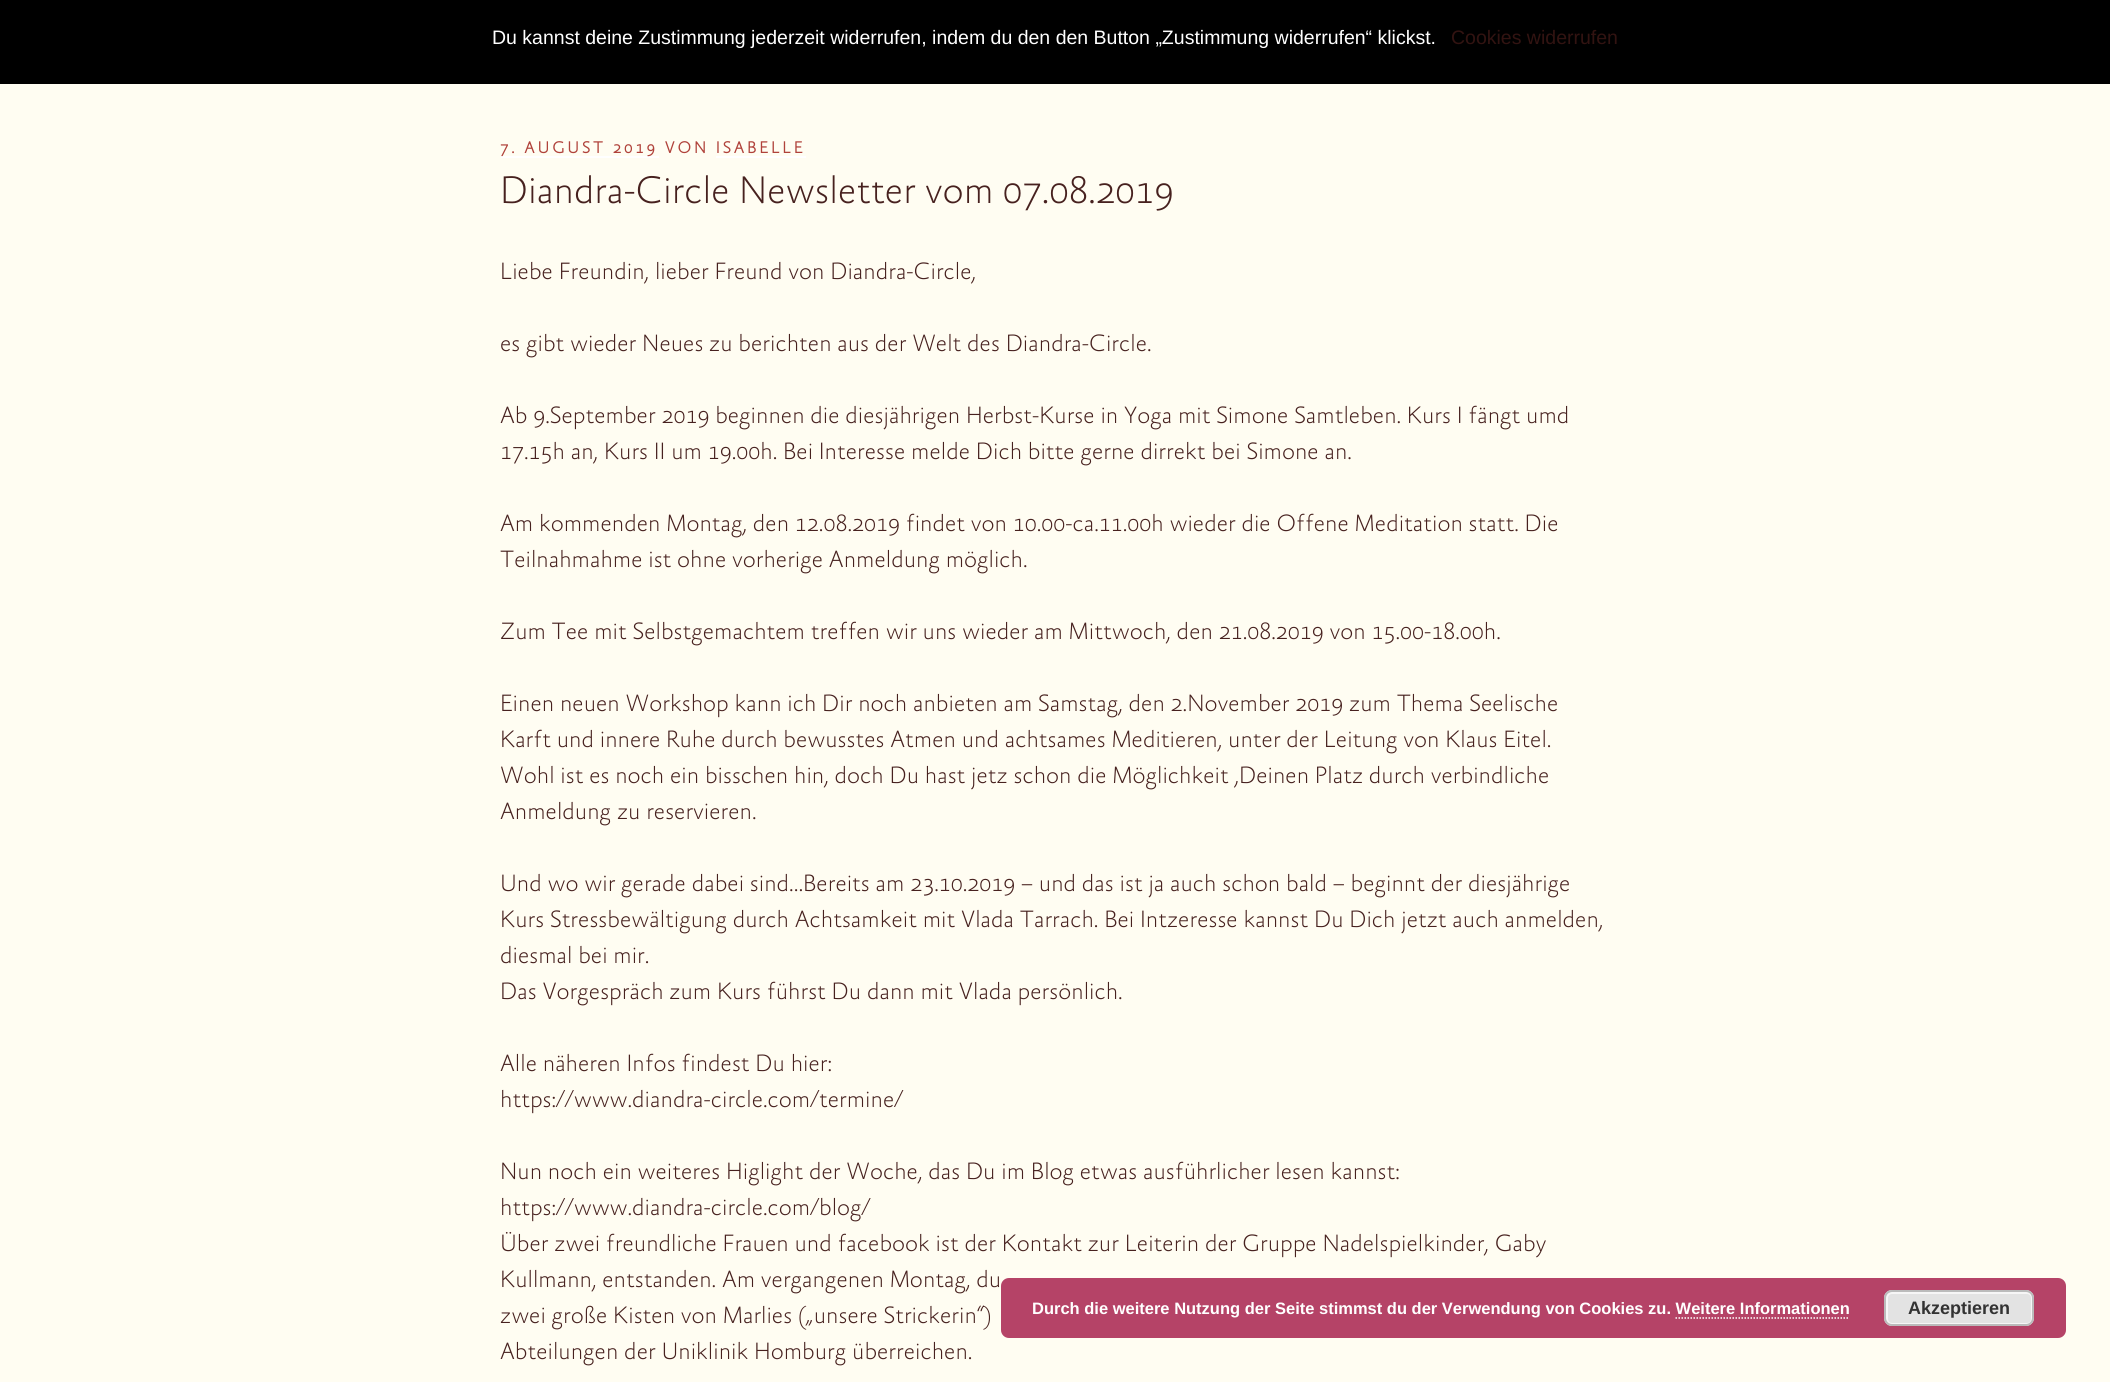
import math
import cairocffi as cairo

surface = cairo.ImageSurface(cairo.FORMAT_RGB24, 2110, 1382)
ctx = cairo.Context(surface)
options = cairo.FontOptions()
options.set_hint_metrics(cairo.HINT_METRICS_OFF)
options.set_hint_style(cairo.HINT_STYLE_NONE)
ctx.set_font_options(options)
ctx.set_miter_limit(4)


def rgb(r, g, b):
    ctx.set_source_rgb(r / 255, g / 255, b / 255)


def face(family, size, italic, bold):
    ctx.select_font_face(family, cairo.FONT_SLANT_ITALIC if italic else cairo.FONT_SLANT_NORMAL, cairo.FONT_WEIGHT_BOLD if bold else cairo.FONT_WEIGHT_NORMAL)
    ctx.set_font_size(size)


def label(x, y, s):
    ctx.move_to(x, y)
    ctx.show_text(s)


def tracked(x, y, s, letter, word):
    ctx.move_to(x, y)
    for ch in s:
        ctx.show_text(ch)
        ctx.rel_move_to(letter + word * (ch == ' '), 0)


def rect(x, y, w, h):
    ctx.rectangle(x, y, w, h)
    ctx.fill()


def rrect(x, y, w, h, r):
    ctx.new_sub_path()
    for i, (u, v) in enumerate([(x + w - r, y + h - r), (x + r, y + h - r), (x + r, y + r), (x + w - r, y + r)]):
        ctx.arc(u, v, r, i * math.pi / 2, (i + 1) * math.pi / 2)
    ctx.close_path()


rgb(255, 253, 242)
ctx.paint()
rgb(0, 0, 0)
rect(0, 0, 2110, 84)
face('Liberation Sans', 19.5, 0, 0)
rgb(255, 255, 255)
label(492, 44, 'Du kannst deine Zustimmung jederzeit widerrufen, indem du den den Button „Zustimmung widerrufen“ klickst.')
rgb(50, 19, 17)
label(1451, 44, 'Cookies widerrufen')
rgb(255, 255, 255)
rect(501, 156, 158, 2)
face('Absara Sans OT', 16.5, 0, 1)
rgb(176, 66, 59)
tracked(500, 153, '7. AUGUST 2019 VON ISABELLE', 3, 0)
rgb(255, 255, 255)
rect(716, 156, 90, 2)
face('Absara Sans OT Thin', 39, 0, 0)
rgb(71, 33, 31)
label(500, 203, 'Diandra-Circle Newsletter vom 07.08.2019')
face('Absara Sans OT Thin', 24, 0, 0)
label(500, 279, 'Liebe Freundin, lieber Freund von Diandra-Circle,')
label(500, 351, 'es gibt wieder Neues zu berichten aus der Welt des Diandra-Circle.')
label(500, 423, 'Ab 9.September 2019 beginnen die diesjährigen Herbst-Kurse in Yoga mit Simone Samtleben. Kurs I fängt umd')
label(500, 459, '17.15h an, Kurs II um 19.00h. Bei Interesse melde Dich bitte gerne dirrekt bei Simone an.')
label(500, 531, 'Am kommenden Montag, den 12.08.2019 findet von 10.00-ca.11.00h wieder die Offene Meditation statt. Die')
label(500, 567, 'Teilnahmahme ist ohne vorherige Anmeldung möglich.')
label(500, 639, 'Zum Tee mit Selbstgemachtem treffen wir uns wieder am Mittwoch, den 21.08.2019 von 15.00-18.00h.')
label(500, 711, 'Einen neuen Workshop kann ich Dir noch anbieten am Samstag, den 2.November 2019 zum Thema Seelische')
label(500, 747, 'Karft und innere Ruhe durch bewusstes Atmen und achtsames Meditieren, unter der Leitung von Klaus Eitel.')
label(500, 783, 'Wohl ist es noch ein bisschen hin, doch Du hast jetz schon die Möglichkeit ,Deinen Platz durch verbindliche')
label(500, 819, 'Anmeldung zu reservieren.')
label(500, 891, 'Und wo wir gerade dabei sind…Bereits am 23.10.2019 – und das ist ja auch schon bald – beginnt der diesjährige')
label(500, 927, 'Kurs Stressbewältigung durch Achtsamkeit mit Vlada Tarrach. Bei Intzeresse kannst Du Dich jetzt auch anmelden,')
label(500, 963, 'diesmal bei mir.')
label(500, 999, 'Das Vorgespräch zum Kurs führst Du dann mit Vlada persönlich.')
label(500, 1071, 'Alle näheren Infos findest Du hier:')
label(500, 1107, 'https://www.diandra-circle.com/termine/')
label(500, 1179, 'Nun noch ein weiteres Higlight der Woche, das Du im Blog etwas ausführlicher lesen kannst:')
label(500, 1215, 'https://www.diandra-circle.com/blog/')
label(500, 1251, 'Über zwei freundliche Frauen und facebook ist der Kontakt zur Leiterin der Gruppe Nadelspielkinder, Gaby')
label(500, 1287, 'Kullmann, entstanden. Am vergangenen Montag, du')
label(500, 1323, 'zwei große Kisten von Marlies („unsere Strickerin“)')
label(500, 1359, 'Abteilungen der Uniklinik Homburg überreichen.')
ctx.set_source_rgba(0.659, 0.137, 0.31, 0.85)
rrect(1001, 1278, 1065, 60, 8)
ctx.fill()
face('Liberation Sans', 16.5, 0, 1)
rgb(255, 255, 255)
label(1032, 1314, 'Durch die weitere Nutzung der Seite stimmst du der Verwendung von Cookies zu. Weitere Informationen')
rgb(227, 227, 227)
rrect(1884, 1290, 150, 36, 8)
ctx.fill()
rrect(1887, 1293, 145, 31, 5)
rgb(246, 246, 246)
ctx.stroke()
rrect(1885, 1291, 148, 34, 7)
rgb(187, 187, 187)
ctx.stroke()
face('Liberation Sans', 18, 0, 1)
rgb(51, 51, 51)
label(1908, 1314, 'Akzeptieren')
ctx.new_path()
ctx.move_to(1675.5, 1318)
ctx.line_to(1849.5, 1318)
rgb(255, 255, 255)
ctx.set_line_width(1.5)
ctx.set_dash([1.5, 1.5])
ctx.stroke()
surface.write_to_png('render.png')
